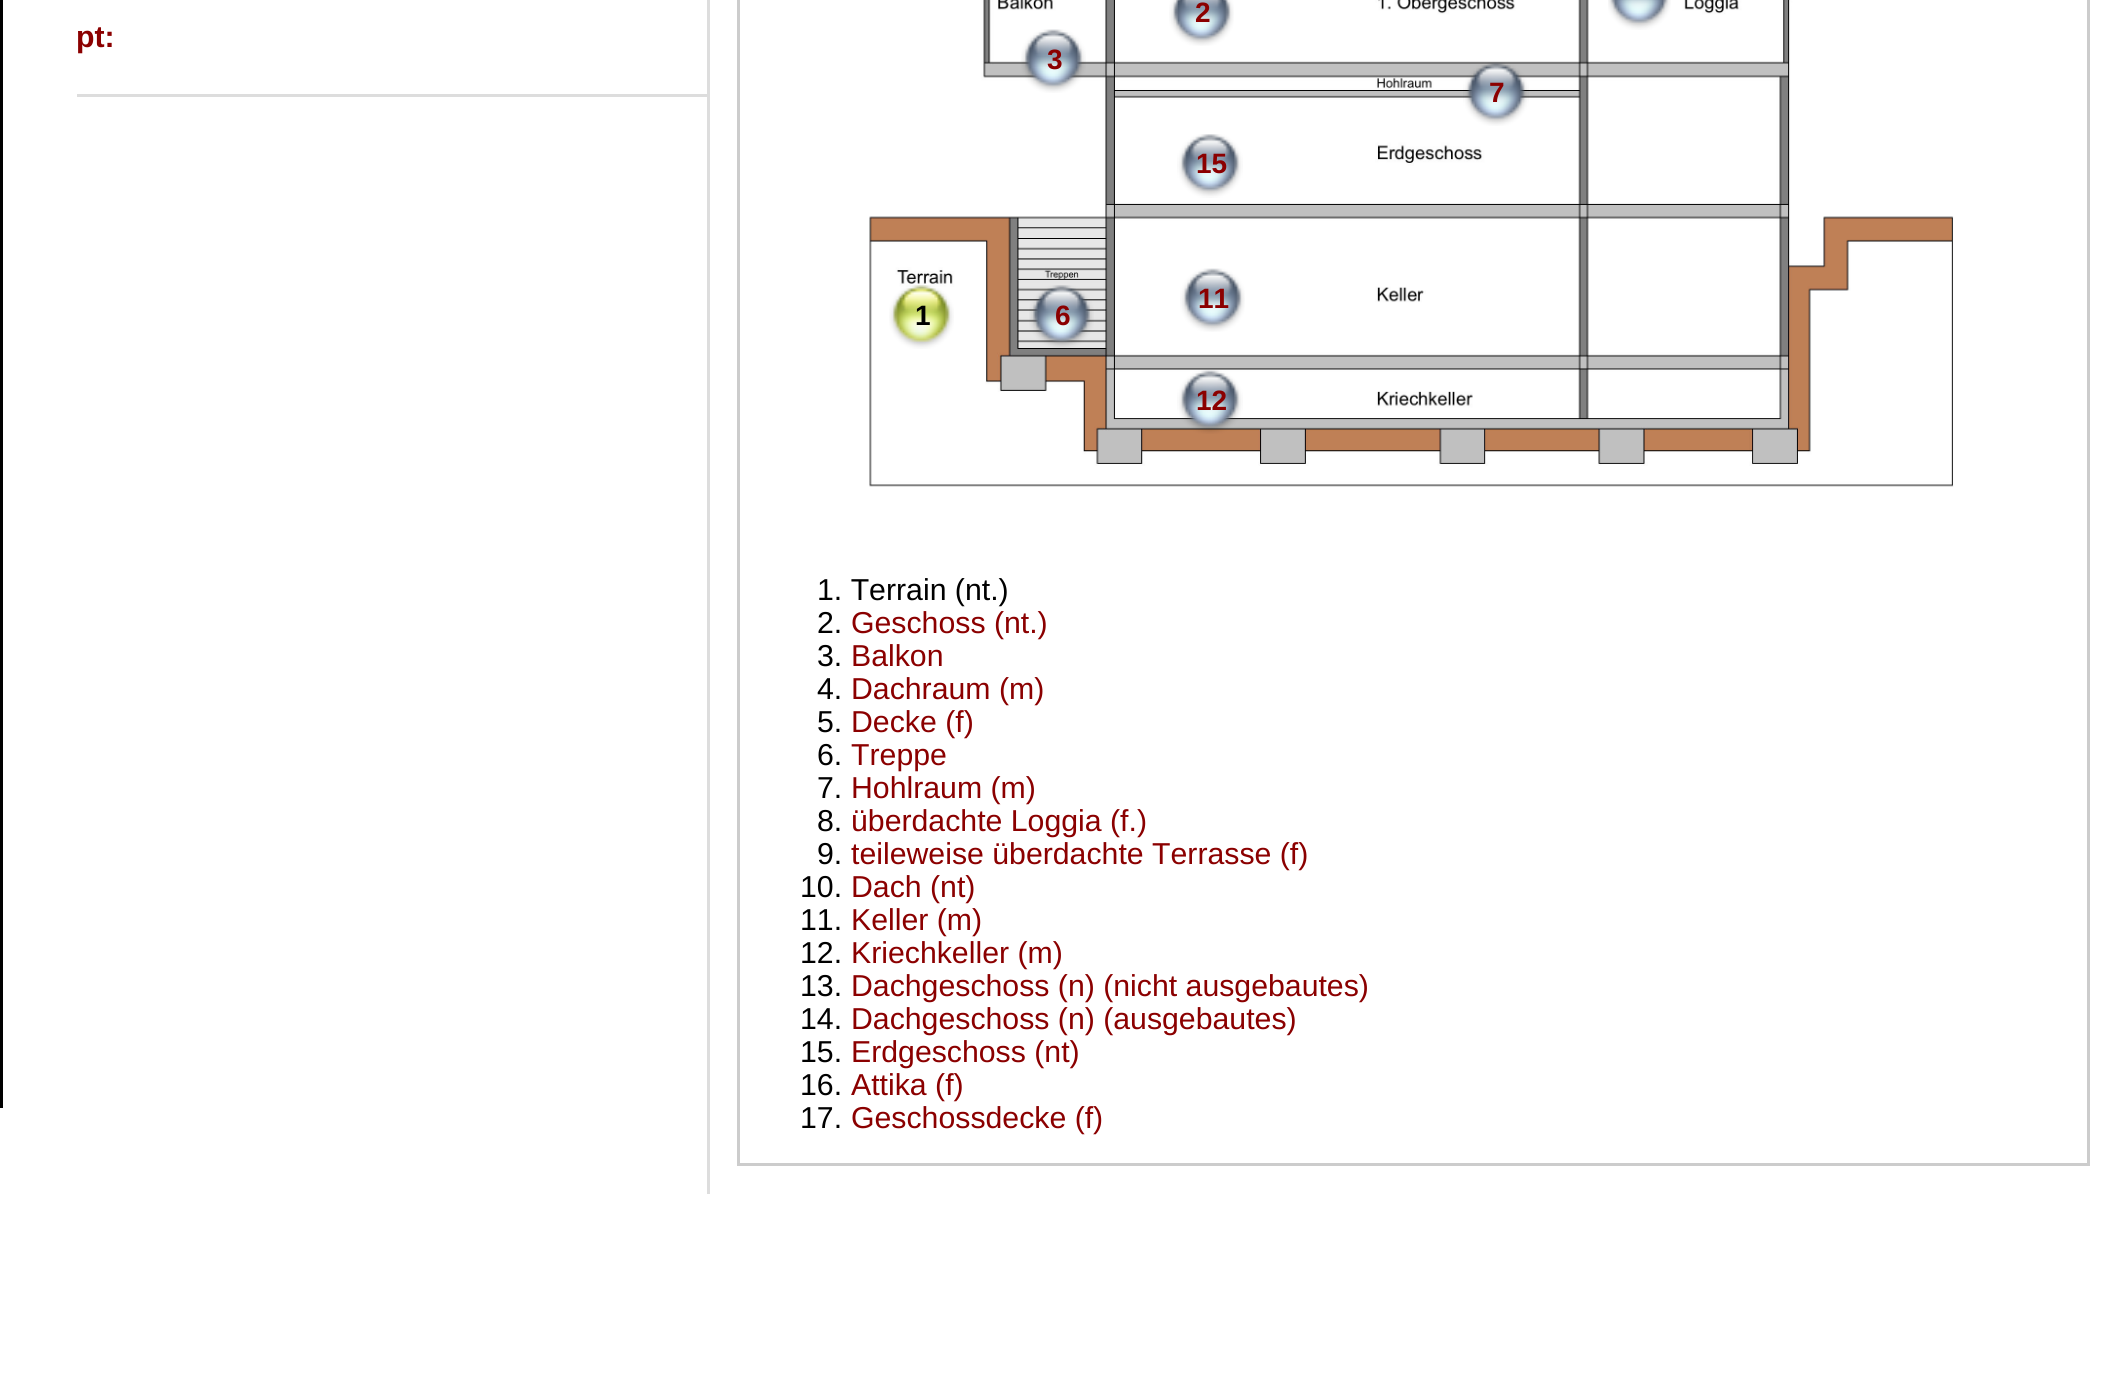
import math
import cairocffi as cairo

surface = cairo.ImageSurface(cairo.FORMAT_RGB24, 2104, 1388)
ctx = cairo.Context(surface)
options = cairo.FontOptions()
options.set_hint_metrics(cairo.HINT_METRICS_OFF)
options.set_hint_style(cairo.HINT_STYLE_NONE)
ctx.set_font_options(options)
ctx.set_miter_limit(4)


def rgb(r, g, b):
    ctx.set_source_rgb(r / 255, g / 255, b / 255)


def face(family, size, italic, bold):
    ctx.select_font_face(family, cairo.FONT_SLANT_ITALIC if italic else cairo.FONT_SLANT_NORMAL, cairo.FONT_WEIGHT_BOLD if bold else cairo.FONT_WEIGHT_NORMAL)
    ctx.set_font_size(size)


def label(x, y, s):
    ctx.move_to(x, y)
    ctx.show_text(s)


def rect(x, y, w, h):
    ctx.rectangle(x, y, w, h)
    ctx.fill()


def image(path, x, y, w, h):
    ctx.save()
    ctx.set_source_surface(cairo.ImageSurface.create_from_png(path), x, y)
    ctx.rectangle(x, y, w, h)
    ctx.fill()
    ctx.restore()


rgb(255, 255, 255)
ctx.paint()
rgb(0, 0, 0)
rect(0, 0, 3, 1108)
rgb(221, 221, 221)
rect(77, 94, 633, 3)
face('Liberation Sans', 30.25, 0, 1)
rgb(139, 0, 0)
label(76, 47, 'pt:')
rgb(221, 221, 221)
rect(707, 0, 3, 1194)
ctx.rectangle(738.5, -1.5, 1350, 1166)
rgb(204, 204, 204)
ctx.set_line_width(3)
ctx.stroke()
image('image0.png', 869, 0, 1085, 487)
image('image1.png', 1169, 0, 65, 46)
face('Liberation Sans', 28, 0, 1)
rgb(139, 0, 0)
label(1195, 22, '2')
face('Liberation Sans', 30.25, 0, 0)
rgb(0, 0, 0)
label(817, 633, '2.')
rgb(139, 0, 0)
label(851, 633, 'Geschoss (nt.)')
image('image2.png', 1021, 29, 65, 64)
face('Liberation Sans', 28, 0, 1)
label(1047, 69, '3')
face('Liberation Sans', 30.25, 0, 0)
rgb(0, 0, 0)
label(817, 666, '3.')
rgb(139, 0, 0)
label(851, 666, 'Balkon')
image('image3.png', 1463, 62, 66, 64)
face('Liberation Sans', 28, 0, 1)
label(1489, 102, '7')
face('Liberation Sans', 30.25, 0, 0)
rgb(0, 0, 0)
label(817, 798, '7.')
rgb(139, 0, 0)
label(851, 798, 'Hohlraum (m)')
image('image4.png', 1177, 134, 66, 64)
face('Liberation Sans', 28, 0, 1)
label(1196, 173, '15')
face('Liberation Sans', 30.25, 0, 0)
rgb(0, 0, 0)
label(800, 1062, '15.')
rgb(139, 0, 0)
label(851, 1062, 'Erdgeschoss (nt)')
image('image5.png', 1180, 268, 65, 64)
face('Liberation Sans', 28, 0, 1)
label(1198, 308, '11')
face('Liberation Sans', 30.25, 0, 0)
rgb(0, 0, 0)
label(800, 930, '11.')
rgb(139, 0, 0)
label(851, 930, 'Keller (m)')
image('image6.png', 1029, 285, 65, 63)
face('Liberation Sans', 28, 0, 1)
label(1055, 325, '6')
face('Liberation Sans', 30.25, 0, 0)
rgb(0, 0, 0)
label(817, 765, '6.')
rgb(139, 0, 0)
label(851, 765, 'Treppe')
image('image7.png', 1177, 370, 66, 64)
face('Liberation Sans', 28, 0, 1)
label(1196, 410, '12')
face('Liberation Sans', 30.25, 0, 0)
rgb(0, 0, 0)
label(800, 963, '12.')
rgb(139, 0, 0)
label(851, 963, 'Kriechkeller (m)')
rgb(0, 0, 0)
label(817, 600, '1. Terrain (nt.)')
label(817, 699, '4.')
rgb(139, 0, 0)
label(851, 699, 'Dachraum (m)')
rgb(0, 0, 0)
label(817, 732, '5.')
rgb(139, 0, 0)
label(851, 732, 'Decke (f)')
image('image8.png', 1608, 0, 63, 30)
rgb(0, 0, 0)
label(817, 831, '8.')
rgb(139, 0, 0)
label(851, 831, 'überdachte Loggia (f.)')
rgb(0, 0, 0)
label(817, 864, '9.')
rgb(139, 0, 0)
label(851, 864, 'teileweise überdachte Terrasse (f)')
rgb(0, 0, 0)
label(800, 897, '10.')
rgb(139, 0, 0)
label(851, 897, 'Dach (nt)')
rgb(0, 0, 0)
label(800, 996, '13.')
rgb(139, 0, 0)
label(851, 996, 'Dachgeschoss (n) (nicht ausgebautes)')
rgb(0, 0, 0)
label(800, 1029, '14.')
rgb(139, 0, 0)
label(851, 1029, 'Dachgeschoss (n) (ausgebautes)')
rgb(0, 0, 0)
label(800, 1095, '16.')
rgb(139, 0, 0)
label(851, 1095, 'Attika (f)')
rgb(0, 0, 0)
label(800, 1128, '17.')
rgb(139, 0, 0)
label(851, 1128, 'Geschossdecke (f)')
image('image9.png', 889, 285, 65, 64)
face('Liberation Sans', 28, 0, 1)
rgb(0, 0, 0)
label(915, 325, '1')
surface.write_to_png('render.png')
